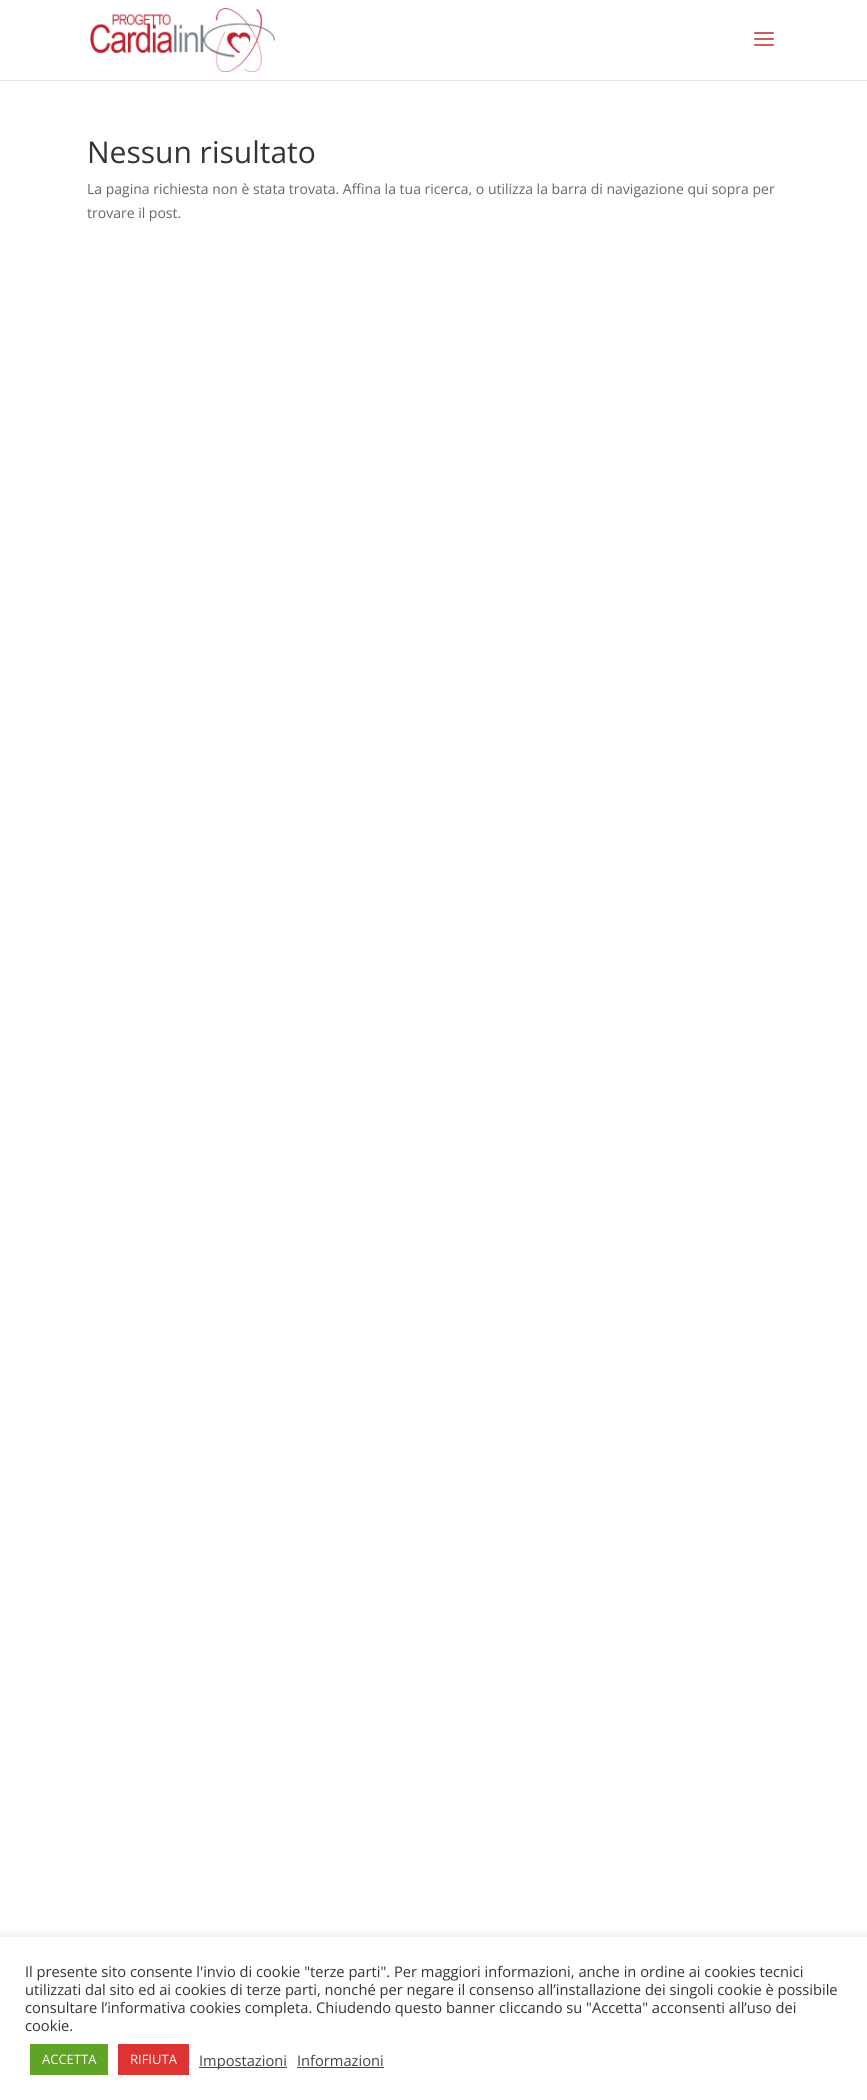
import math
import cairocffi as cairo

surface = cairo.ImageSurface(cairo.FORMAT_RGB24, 867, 2100)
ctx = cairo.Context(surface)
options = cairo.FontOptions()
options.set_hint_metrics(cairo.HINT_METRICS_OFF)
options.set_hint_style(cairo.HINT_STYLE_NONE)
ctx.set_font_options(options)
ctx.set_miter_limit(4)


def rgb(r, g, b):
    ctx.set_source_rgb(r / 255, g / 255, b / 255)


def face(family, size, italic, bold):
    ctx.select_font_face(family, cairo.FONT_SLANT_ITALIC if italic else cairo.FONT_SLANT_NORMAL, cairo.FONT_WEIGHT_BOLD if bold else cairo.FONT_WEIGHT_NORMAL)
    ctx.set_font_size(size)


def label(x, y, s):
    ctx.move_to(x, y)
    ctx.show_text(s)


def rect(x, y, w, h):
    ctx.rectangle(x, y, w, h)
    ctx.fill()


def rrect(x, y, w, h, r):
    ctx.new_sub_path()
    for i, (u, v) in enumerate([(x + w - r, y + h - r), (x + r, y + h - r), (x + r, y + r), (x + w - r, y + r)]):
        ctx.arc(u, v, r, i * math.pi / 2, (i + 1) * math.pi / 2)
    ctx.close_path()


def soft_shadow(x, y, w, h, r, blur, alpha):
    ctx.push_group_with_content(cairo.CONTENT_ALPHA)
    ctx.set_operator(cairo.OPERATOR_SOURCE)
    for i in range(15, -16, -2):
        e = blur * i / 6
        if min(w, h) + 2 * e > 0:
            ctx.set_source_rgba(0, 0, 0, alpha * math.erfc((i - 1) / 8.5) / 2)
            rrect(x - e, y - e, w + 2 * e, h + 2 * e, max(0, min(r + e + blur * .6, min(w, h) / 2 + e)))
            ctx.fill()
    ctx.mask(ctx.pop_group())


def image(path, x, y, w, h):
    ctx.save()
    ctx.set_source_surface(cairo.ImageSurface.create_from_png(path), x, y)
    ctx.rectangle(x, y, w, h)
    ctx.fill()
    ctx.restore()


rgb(255, 255, 255)
ctx.paint()
rgb(230, 230, 230)
rect(0, 80, 867, 1)
image('image0.png', 90, 8, 185, 64)
image('image1.png', 754, 32, 20, 14)
face('Open Sans', 30, 0, 0)
rgb(51, 51, 51)
label(87, 163, 'Nessun risultato')
face('Open Sans', 14, 0, 0)
rgb(102, 102, 102)
label(87, 194, 'La pagina richiesta non è stata trovata. Affina la tua ricerca, o utilizza la barra di navigazione qui sopra per')
label(87, 218, 'trovare il post.')
ctx.save()
ctx.rectangle(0, 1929, 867, 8)
ctx.clip()
rgb(172, 171, 171)
soft_shadow(0, 1936, 867, 163, 0, 5, 0.3)
ctx.restore()
face('Open Sans', 14.67, 0, 0)
rgb(51, 51, 51)
label(25, 1977, 'Il presente sito consente l\'invio di cookie "terze parti". Per maggiori informazioni, anche in ordine ai cookies tecnici')
label(25, 1995, 'utilizzati dal sito ed ai cookies di terze parti, nonché per negare il consenso all’installazione dei singoli cookie è possibile')
label(25, 2013, 'consultare l’informativa cookies completa. Chiudendo questo banner cliccando su "Accetta" acconsenti all’uso dei')
label(25, 2031, 'cookie.')
rgb(97, 162, 41)
rect(30, 2044, 78, 31)
face('Open Sans', 13, 0, 0)
rgb(255, 255, 255)
label(42, 2064, 'ACCETTA')
rgb(221, 51, 51)
rect(118, 2044, 71, 31)
rgb(255, 255, 255)
label(130, 2064, 'RIFIUTA')
rgb(68, 68, 68)
rect(199, 2067, 88, 1)
face('Open Sans', 14.67, 0, 0)
label(199, 2066, 'Impostazioni')
label(297, 2066, 'Informazioni')
rect(297, 2067, 87, 1)
surface.write_to_png('render.png')
